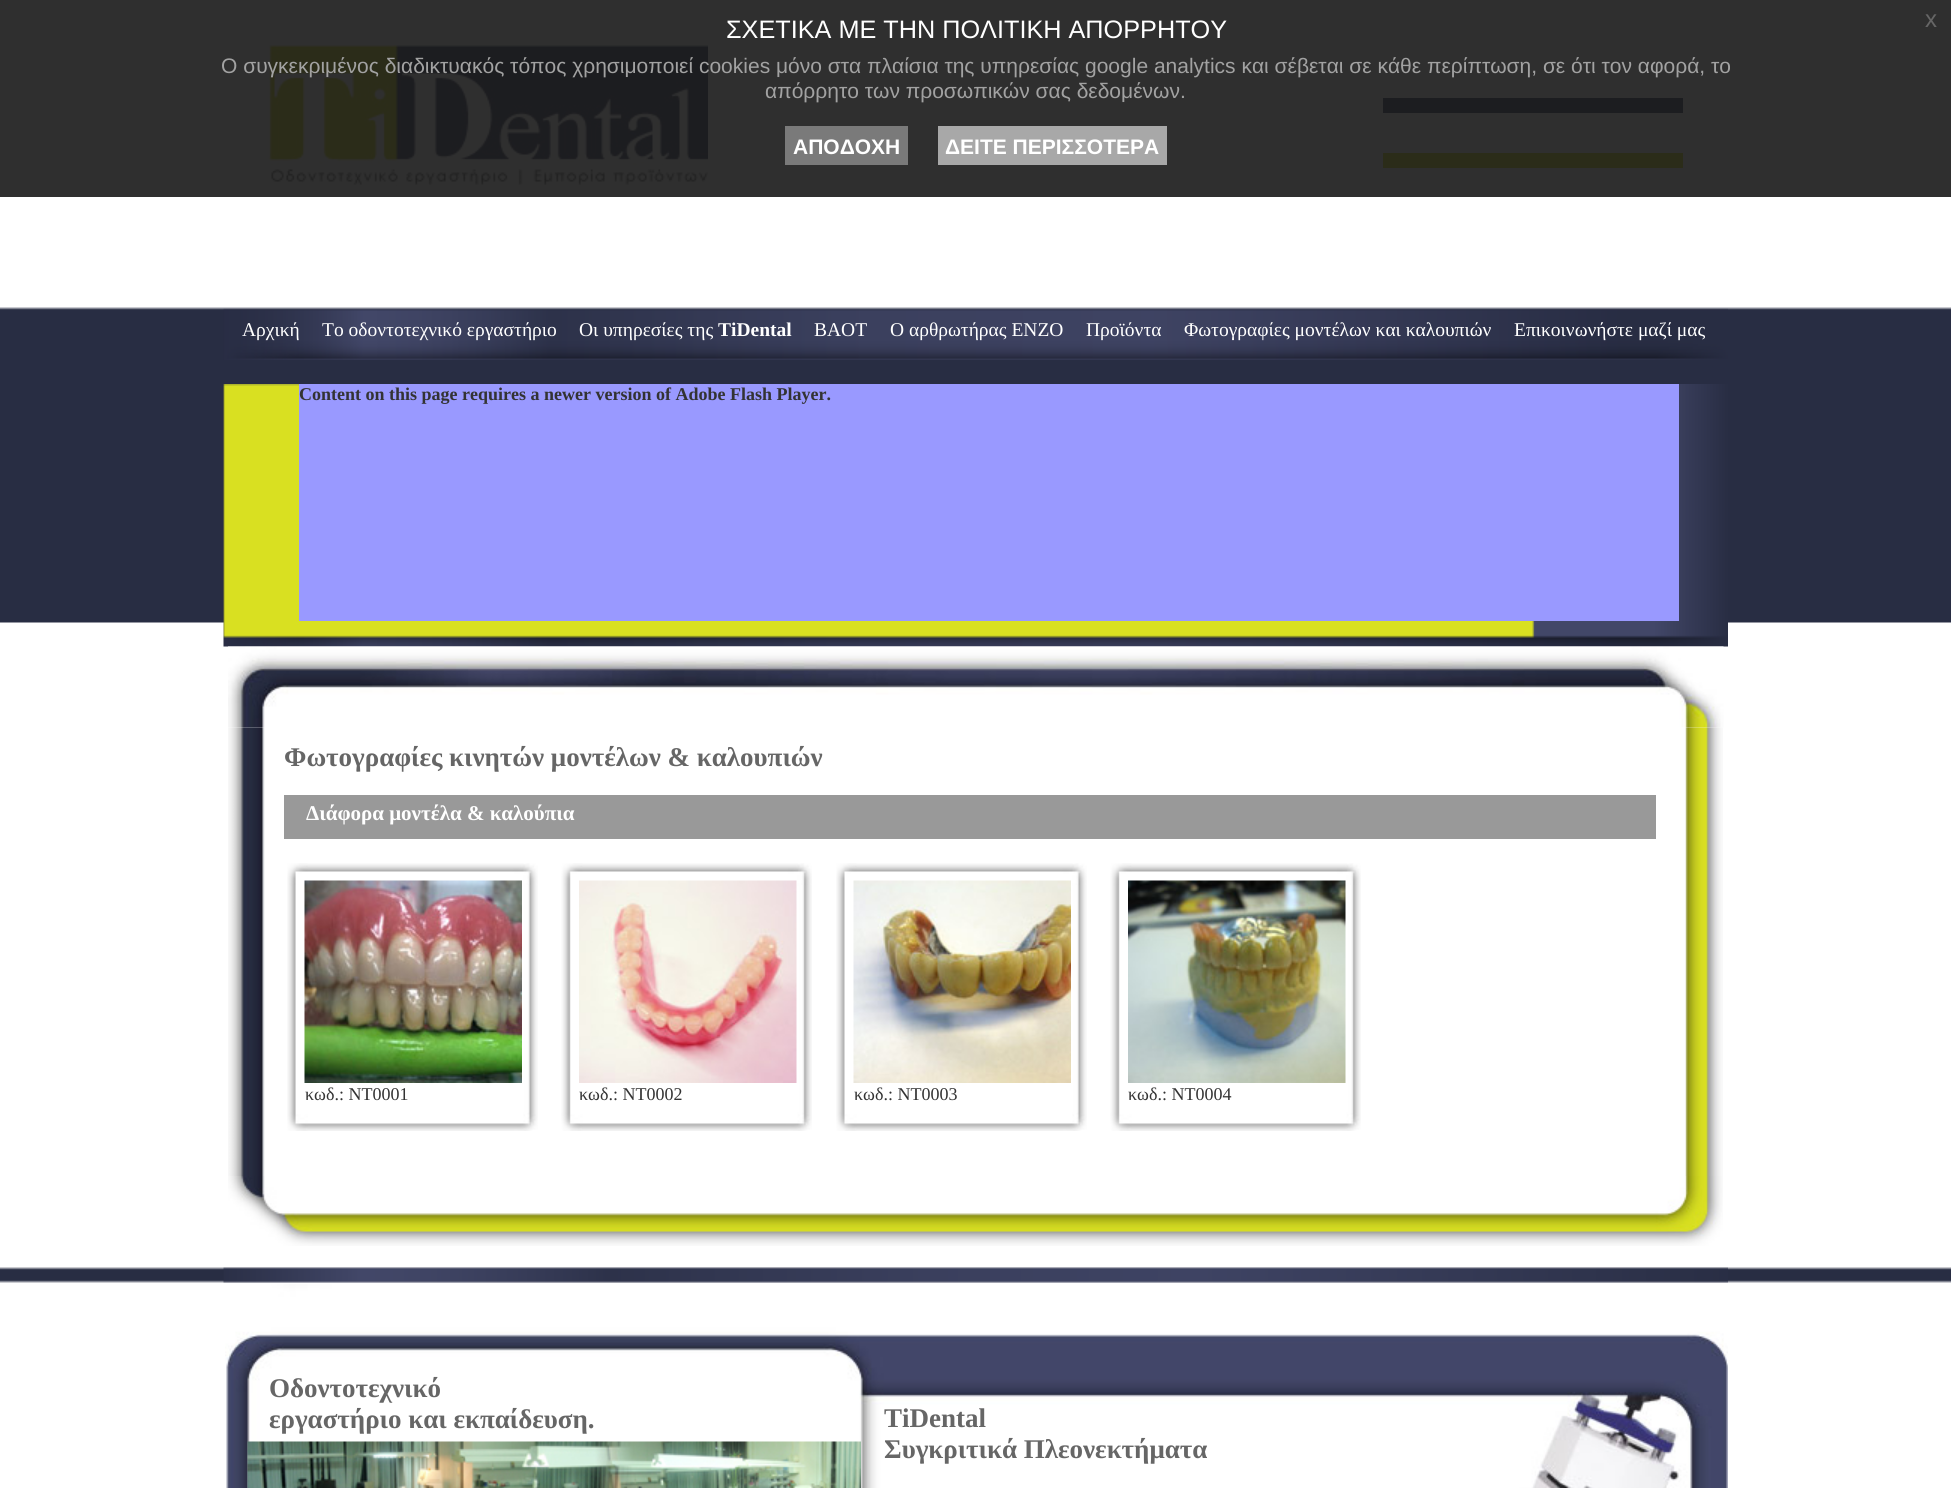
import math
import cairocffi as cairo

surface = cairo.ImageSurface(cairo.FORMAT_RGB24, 1951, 1488)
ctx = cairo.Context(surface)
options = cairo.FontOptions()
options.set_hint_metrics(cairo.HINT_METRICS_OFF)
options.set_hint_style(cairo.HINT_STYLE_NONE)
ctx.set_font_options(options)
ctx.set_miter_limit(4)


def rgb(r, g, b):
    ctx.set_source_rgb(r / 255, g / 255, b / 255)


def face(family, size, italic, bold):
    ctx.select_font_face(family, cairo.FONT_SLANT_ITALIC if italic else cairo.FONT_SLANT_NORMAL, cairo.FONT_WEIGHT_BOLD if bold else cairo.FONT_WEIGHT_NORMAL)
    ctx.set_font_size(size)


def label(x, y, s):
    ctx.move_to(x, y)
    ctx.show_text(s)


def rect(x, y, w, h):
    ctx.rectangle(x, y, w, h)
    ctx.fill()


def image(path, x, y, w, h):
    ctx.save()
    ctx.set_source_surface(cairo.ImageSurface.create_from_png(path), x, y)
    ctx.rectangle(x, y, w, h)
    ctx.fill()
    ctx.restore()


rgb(255, 255, 255)
ctx.paint()
image('image2.png', 268, 45, 440, 141)
rgb(66, 71, 103)
rect(1383, 98, 300, 15)
rgb(217, 224, 33)
rect(1383, 153, 300, 15)
ctx.set_source_rgba(0.098, 0.098, 0.098, 0.9)
rect(0, 0, 1951, 197)
face('Liberation Sans', 25.25, 0, 0)
rgb(255, 255, 255)
label(726, 38, 'ΣΧΕΤΙΚΑ ΜΕ ΤΗΝ ΠΟΛΙΤΙΚΗ ΑΠΟΡΡΗΤΟΥ')
face('Liberation Sans', 24, 0, 0)
rgb(102, 102, 102)
label(1925, 27, 'x')
face('Liberation Sans', 21, 0, 0)
rgb(162, 162, 162)
label(221, 73, 'Ο συγκεκριμένος διαδικτυακός τόπος χρησιμοποιεί cookies μόνο στα πλαίσια της υπηρεσίας google analytics και σέβεται σε κάθε περίπτωση, σε ότι τον αφορά, το')
label(765, 98, 'απόρρητο των προσωπικών σας δεδομένων.')
rgb(122, 122, 122)
rect(785, 126, 123, 39)
face('Liberation Sans', 21, 0, 1)
rgb(255, 255, 255)
label(793, 154, 'ΑΠΟΔΟΧΗ')
rgb(168, 168, 168)
rect(938, 126, 229, 39)
rgb(255, 255, 255)
label(945, 154, 'ΔΕΙΤΕ ΠΕΡΙΣΣΟΤΕΡΑ')
image('image0.png', 0, 307, 1951, 316)
image('image1.png', 0, 1267, 1951, 16)
image('image3.png', 223, 308, 1505, 52)
face('Liberation Serif', 19.5, 0, 0)
label(242, 336, 'Αρχική')
label(322, 336, 'Το οδοντοτεχνικό εργαστήριο')
label(579, 336, 'Οι υπηρεσίες της')
face('Liberation Serif', 19.5, 0, 1)
label(718, 336, 'TiDental')
face('Liberation Serif', 19.5, 0, 0)
label(814, 336, 'BAOT')
label(890, 336, 'Ο αρθρωτήρας ΕΝΖΟ')
label(1086, 336, 'Προϊόντα')
label(1184, 336, 'Φωτογραφίες μοντέλων και καλουπιών')
label(1514, 336, 'Επικοινωνήστε μαζί μας')
image('image4.png', 223, 384, 1505, 263)
rgb(153, 153, 255)
rect(299, 384, 1380, 237)
face('Liberation Serif', 18, 0, 1)
rgb(51, 51, 51)
label(299, 400, 'Content on this page requires a newer version of Adobe Flash Player.')
image('image5.png', 223, 1267, 1505, 16)
image('image6.png', 228, 646, 1496, 82)
image('image7.png', 228, 727, 1495, 449)
face('Liberation Serif', 27, 0, 1)
rgb(102, 102, 102)
label(284, 766, 'Φωτογραφίες κινητών μοντέλων & καλουπιών')
rgb(153, 153, 153)
rect(284, 795, 1372, 44)
face('Liberation Serif', 21, 0, 1)
rgb(255, 255, 255)
label(306, 820, 'Διάφορα μοντέλα & καλούπια')
image('image8.png', 287, 863, 251, 268)
image('image9.png', 304, 880, 218, 203)
face('Liberation Serif', 18, 0, 0)
rgb(51, 51, 51)
label(305, 1100, 'κωδ.: ΝΤ0001')
image('image10.png', 561, 863, 251, 268)
image('image11.png', 579, 880, 218, 203)
label(579, 1100, 'κωδ.: ΝΤ0002')
image('image12.png', 836, 863, 251, 268)
image('image13.png', 853, 880, 218, 203)
label(854, 1100, 'κωδ.: ΝΤ0003')
image('image14.png', 1110, 863, 251, 268)
image('image15.png', 1128, 880, 218, 203)
label(1128, 1100, 'κωδ.: ΝΤ0004')
image('image16.png', 228, 1176, 1495, 70)
image('image17.png', 225, 1284, 1503, 204)
face('Liberation Serif', 27, 0, 1)
rgb(102, 102, 102)
label(269, 1397, 'Οδοντοτεχνικό')
label(269, 1428, 'εργαστήριο και εκπαίδευση.')
image('image18.png', 247, 1441, 614, 47)
label(884, 1427, 'TiDental')
label(884, 1458, 'Συγκριτικά Πλεονεκτήματα')
surface.write_to_png('render.png')
